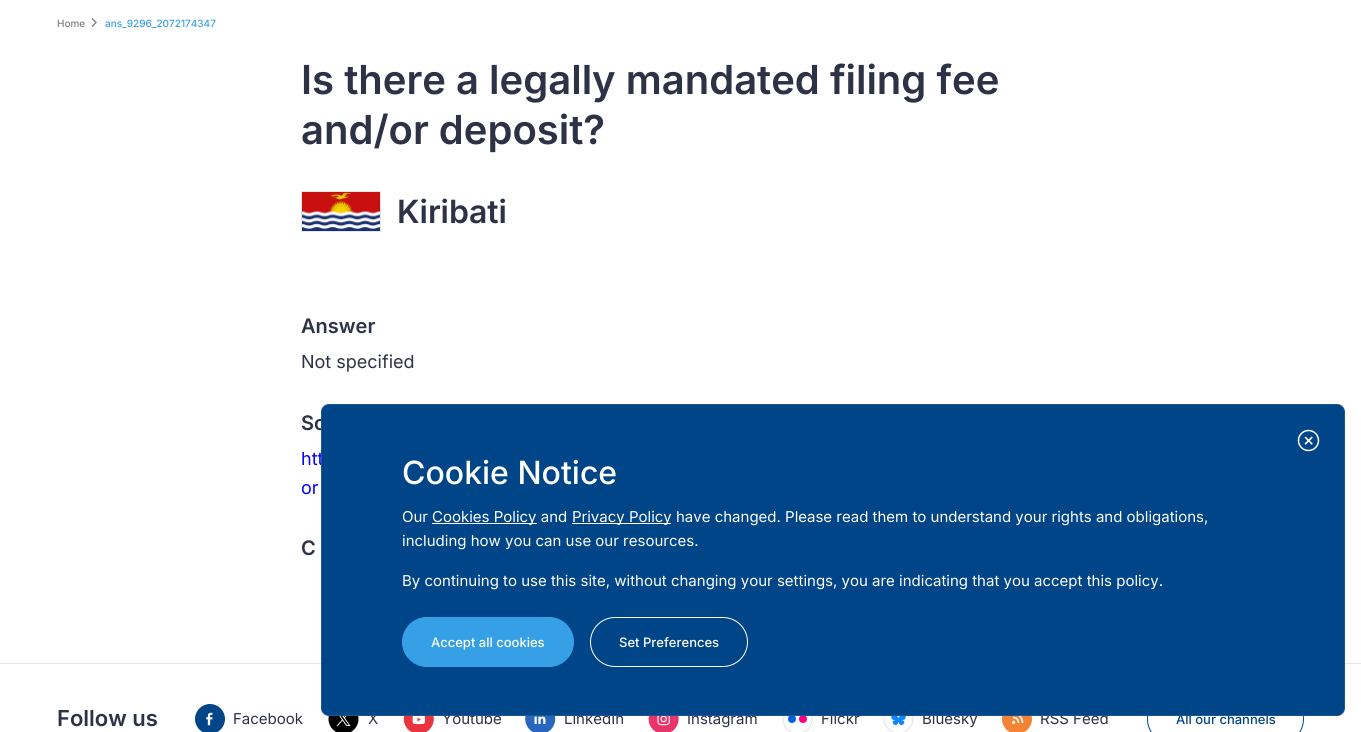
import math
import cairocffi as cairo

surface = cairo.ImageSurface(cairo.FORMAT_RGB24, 1361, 732)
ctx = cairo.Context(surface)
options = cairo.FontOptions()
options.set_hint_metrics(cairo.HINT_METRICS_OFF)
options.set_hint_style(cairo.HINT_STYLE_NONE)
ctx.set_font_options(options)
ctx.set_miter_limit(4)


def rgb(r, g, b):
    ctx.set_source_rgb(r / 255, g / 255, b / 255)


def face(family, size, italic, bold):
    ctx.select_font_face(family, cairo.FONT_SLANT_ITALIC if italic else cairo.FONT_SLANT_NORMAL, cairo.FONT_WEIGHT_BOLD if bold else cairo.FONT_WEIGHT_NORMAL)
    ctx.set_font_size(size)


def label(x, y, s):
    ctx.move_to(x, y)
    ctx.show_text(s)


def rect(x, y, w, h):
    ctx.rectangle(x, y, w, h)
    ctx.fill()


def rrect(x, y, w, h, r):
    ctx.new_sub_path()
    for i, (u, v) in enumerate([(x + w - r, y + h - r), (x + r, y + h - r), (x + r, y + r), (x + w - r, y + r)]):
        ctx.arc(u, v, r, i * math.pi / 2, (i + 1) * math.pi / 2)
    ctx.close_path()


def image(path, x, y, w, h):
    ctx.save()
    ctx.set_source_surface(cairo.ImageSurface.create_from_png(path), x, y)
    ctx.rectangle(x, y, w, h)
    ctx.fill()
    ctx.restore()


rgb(255, 255, 255)
ctx.paint()
face('Inter Medium', 10, 0, 0)
rgb(128, 128, 128)
label(57, 27, 'Home')
image('image0.png', 91, 18, 6, 9)
rgb(54, 160, 231)
label(105, 27, 'ans_9296_2072174347')
face('Inter SemiBold', 40, 0, 0)
rgb(45, 50, 70)
label(301, 94, 'Is there a legally mandated filing fee')
label(301, 144, 'and/or deposit?')
ctx.rectangle(301.5, 191.5, 79, 40)
rgb(228, 230, 232)
ctx.set_line_width(1)
ctx.stroke()
image('image1.png', 302, 192, 78, 39)
face('Inter SemiBold', 32, 0, 0)
rgb(45, 50, 70)
label(397, 223, 'Kiribati')
face('Inter SemiBold', 20, 0, 0)
label(301, 333, 'Answer')
face('Inter', 18, 0, 0)
label(301, 368, 'Not specified')
face('Inter SemiBold', 20, 0, 0)
label(301, 430, 'So')
face('Inter', 18, 0, 0)
rgb(0, 0, 255)
label(301, 465, 'htt')
label(301, 494, 'or')
face('Inter SemiBold', 20, 0, 0)
rgb(45, 50, 70)
label(301, 555, 'C')
rgb(228, 230, 232)
rect(0, 663, 1361, 1)
image('image4.png', 328, 715, 31, 17)
face('Inter', 15, 0, 0)
rgb(45, 50, 70)
label(368, 724, 'X')
label(442, 724, 'Youtube')
label(564, 724, 'LinkedIn')
label(687, 724, 'Instagram')
ctx.new_path()
ctx.arc(797.5, 719, 14.5, 0, 2 * math.pi)
rgb(224, 224, 224)
ctx.stroke()
rgb(0, 99, 220)
ctx.arc(792, 719, 4, 0, 2 * math.pi)
ctx.fill()
rgb(255, 0, 132)
ctx.arc(803, 719, 4, 0, 2 * math.pi)
ctx.fill()
rgb(45, 50, 70)
label(821, 724, 'Flickr')
label(922, 724, 'Bluesky')
label(1040, 724, 'RSS Feed')
rrect(1147.5, 694.5, 156, 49, 24.5)
rgb(0, 69, 135)
ctx.stroke()
rrect(321, 404, 1024, 312, 8)
ctx.fill()
face('Inter Medium', 13, 0, 0)
label(1176, 724, 'All our channels')
rrect(321.5, 404.5, 1023, 311, 7.5)
ctx.set_source_rgba(1, 1, 1, 0.1)
ctx.stroke()
image('image2.png', 1297, 429, 23, 23)
face('Inter Medium', 32, 0, 0)
rgb(255, 255, 255)
label(402, 484, 'Cookie Notice')
face('Inter', 15, 0, 0)
label(402, 522, 'Our')
rect(432, 523, 105, 1)
label(432, 522, 'Cookies Policy and')
rect(572, 523, 99, 1)
label(572, 522, 'Privacy Policy have changed. Please read them to understand your rights and obligations,')
label(402, 546, 'including how you can use our resources.')
label(402, 586, 'By continuing to use this site, without changing your settings, you are indicating that you accept this policy.')
rgb(54, 160, 231)
rrect(402.5, 617.5, 171, 49, 24.5)
ctx.fill_preserve()
ctx.stroke()
face('Inter Medium', 13, 0, 0)
rgb(255, 255, 255)
label(431, 647, 'Accept all cookies')
rrect(590.5, 617.5, 157, 49, 24.5)
ctx.stroke()
label(619, 647, 'Set Preferences')
face('Inter SemiBold', 22, 0, 0)
rgb(45, 50, 70)
label(57, 726, 'Follow us')
image('image3.png', 195, 704, 30, 28)
face('Inter', 15, 0, 0)
label(233, 724, 'Facebook')
image('image5.png', 403, 716, 31, 16)
image('image6.png', 525, 716, 31, 16)
image('image7.png', 648, 716, 31, 16)
image('image8.png', 883, 716, 31, 16)
image('image9.png', 1002, 716, 30, 16)
surface.write_to_png('render.png')
